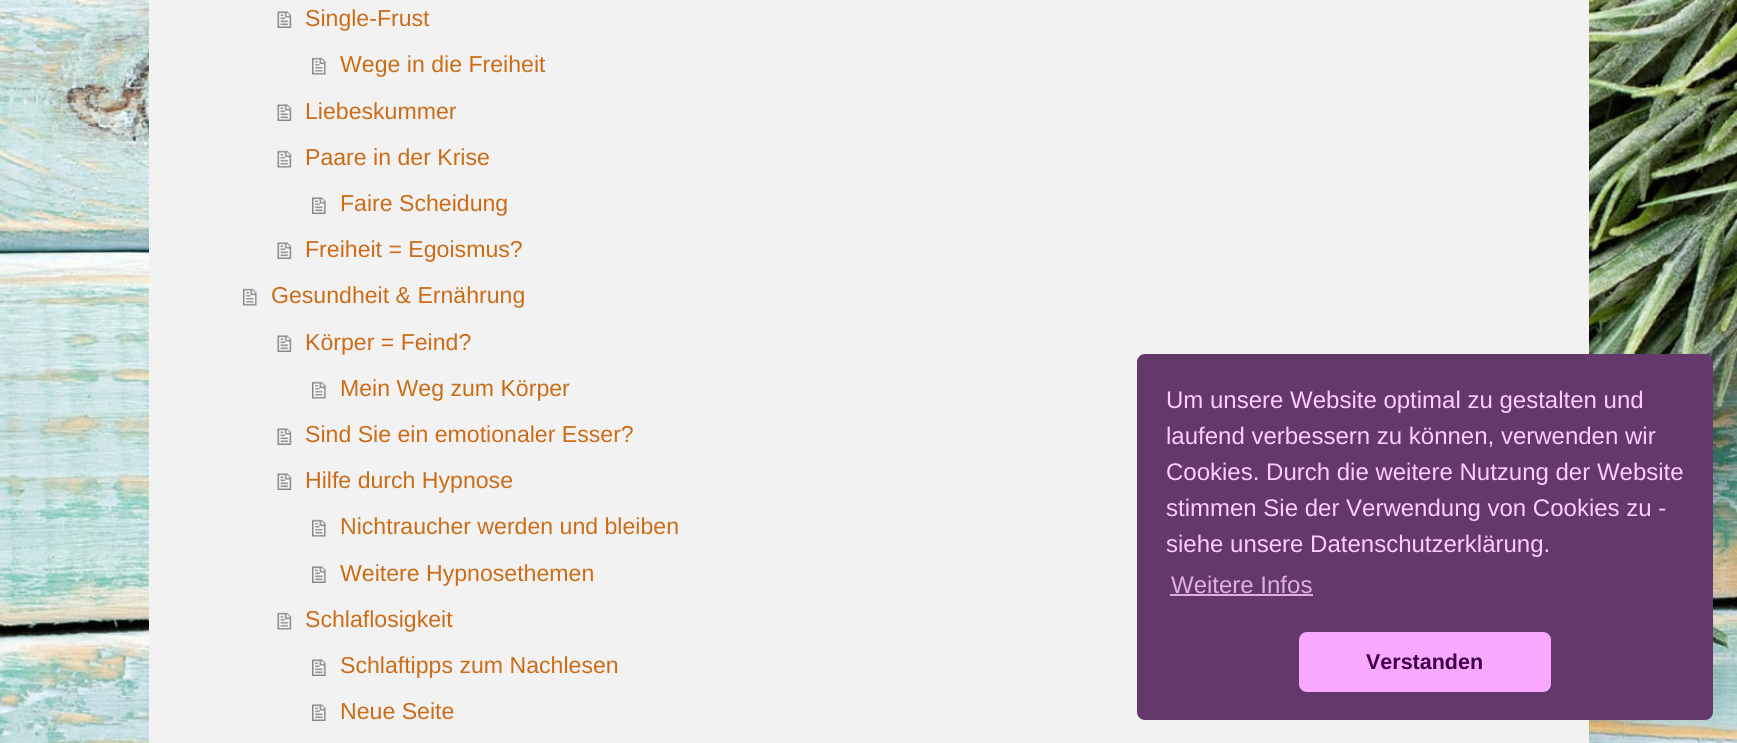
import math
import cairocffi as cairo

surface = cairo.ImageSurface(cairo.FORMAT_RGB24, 1737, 743)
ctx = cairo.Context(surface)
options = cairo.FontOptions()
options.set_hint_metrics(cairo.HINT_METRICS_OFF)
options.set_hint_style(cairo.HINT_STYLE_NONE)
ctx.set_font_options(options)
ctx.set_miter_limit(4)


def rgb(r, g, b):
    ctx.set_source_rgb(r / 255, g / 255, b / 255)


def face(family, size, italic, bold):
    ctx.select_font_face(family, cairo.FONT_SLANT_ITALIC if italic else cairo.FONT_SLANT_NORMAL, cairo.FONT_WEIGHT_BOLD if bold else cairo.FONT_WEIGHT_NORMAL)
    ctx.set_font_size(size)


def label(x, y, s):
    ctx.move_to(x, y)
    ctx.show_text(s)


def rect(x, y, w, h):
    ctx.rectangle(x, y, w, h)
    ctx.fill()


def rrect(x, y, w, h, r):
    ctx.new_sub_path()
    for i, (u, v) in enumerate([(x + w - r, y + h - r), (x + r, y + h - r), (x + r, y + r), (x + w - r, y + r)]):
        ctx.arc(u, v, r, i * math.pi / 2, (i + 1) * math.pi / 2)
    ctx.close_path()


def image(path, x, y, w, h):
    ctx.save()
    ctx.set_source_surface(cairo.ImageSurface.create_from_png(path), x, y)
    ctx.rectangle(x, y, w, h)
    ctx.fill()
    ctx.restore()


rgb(255, 255, 255)
ctx.paint()
image('image0.png', 0, 0, 1737, 743)
rgb(242, 242, 242)
rect(149, 0, 1440, 743)
image('image1.png', 277, 11, 15, 17)
face('Liberation Sans', 23.1, 0, 0)
rgb(204, 108, 22)
label(305, 26, 'Single-Frust')
image('image2.png', 312, 57, 14, 18)
label(340, 72, 'Wege in die Freiheit')
image('image1.png', 277, 104, 15, 17)
label(305, 119, 'Liebeskummer')
image('image3.png', 277, 150, 15, 18)
label(305, 165, 'Paare in der Krise')
image('image4.png', 312, 197, 14, 17)
label(340, 211, 'Faire Scheidung')
image('image1.png', 277, 242, 15, 17)
label(305, 257, 'Freiheit = Egoismus?')
image('image5.png', 243, 288, 14, 18)
label(271, 303, 'Gesundheit & Ernährung')
image('image1.png', 277, 335, 15, 17)
label(305, 350, 'Körper = Feind?')
image('image2.png', 312, 381, 14, 18)
label(340, 396, 'Mein Weg zum Körper')
image('image1.png', 277, 428, 15, 17)
label(305, 442, 'Sind Sie ein emotionaler Esser?')
image('image1.png', 277, 473, 15, 17)
label(305, 488, 'Hilfe durch Hypnose')
image('image2.png', 312, 519, 14, 18)
label(340, 534, 'Nichtraucher werden und bleiben')
image('image4.png', 312, 566, 14, 17)
label(340, 581, 'Weitere Hypnosethemen')
image('image3.png', 277, 612, 15, 18)
label(305, 627, 'Schlaflosigkeit')
image('image4.png', 312, 659, 14, 17)
label(340, 673, 'Schlaftipps zum Nachlesen')
image('image4.png', 312, 704, 14, 17)
label(340, 719, 'Neue Seite')
rgb(100, 56, 107)
rrect(1137, 354, 576, 366, 8)
ctx.fill()
face('Liberation Sans', 24, 0, 0)
rgb(255, 205, 253)
label(1166, 408, 'Um unsere Website optimal zu gestalten und')
label(1166, 444, 'laufend verbessern zu können, verwenden wir')
label(1166, 480, 'Cookies. Durch die weitere Nutzung der Website')
label(1166, 516, 'stimmen Sie der Verwendung von Cookies zu -')
label(1166, 552, 'siehe unsere Datenschutzerklärung.')
rgb(224, 175, 224)
label(1171, 593, 'Weitere Infos')
rect(1170, 594, 143, 2)
rgb(248, 168, 255)
rrect(1299, 632, 252, 60, 8)
ctx.fill()
face('Liberation Sans', 21.5, 0, 1)
rgb(63, 0, 69)
label(1366, 669, 'Verstanden')
surface.write_to_png('render.png')
